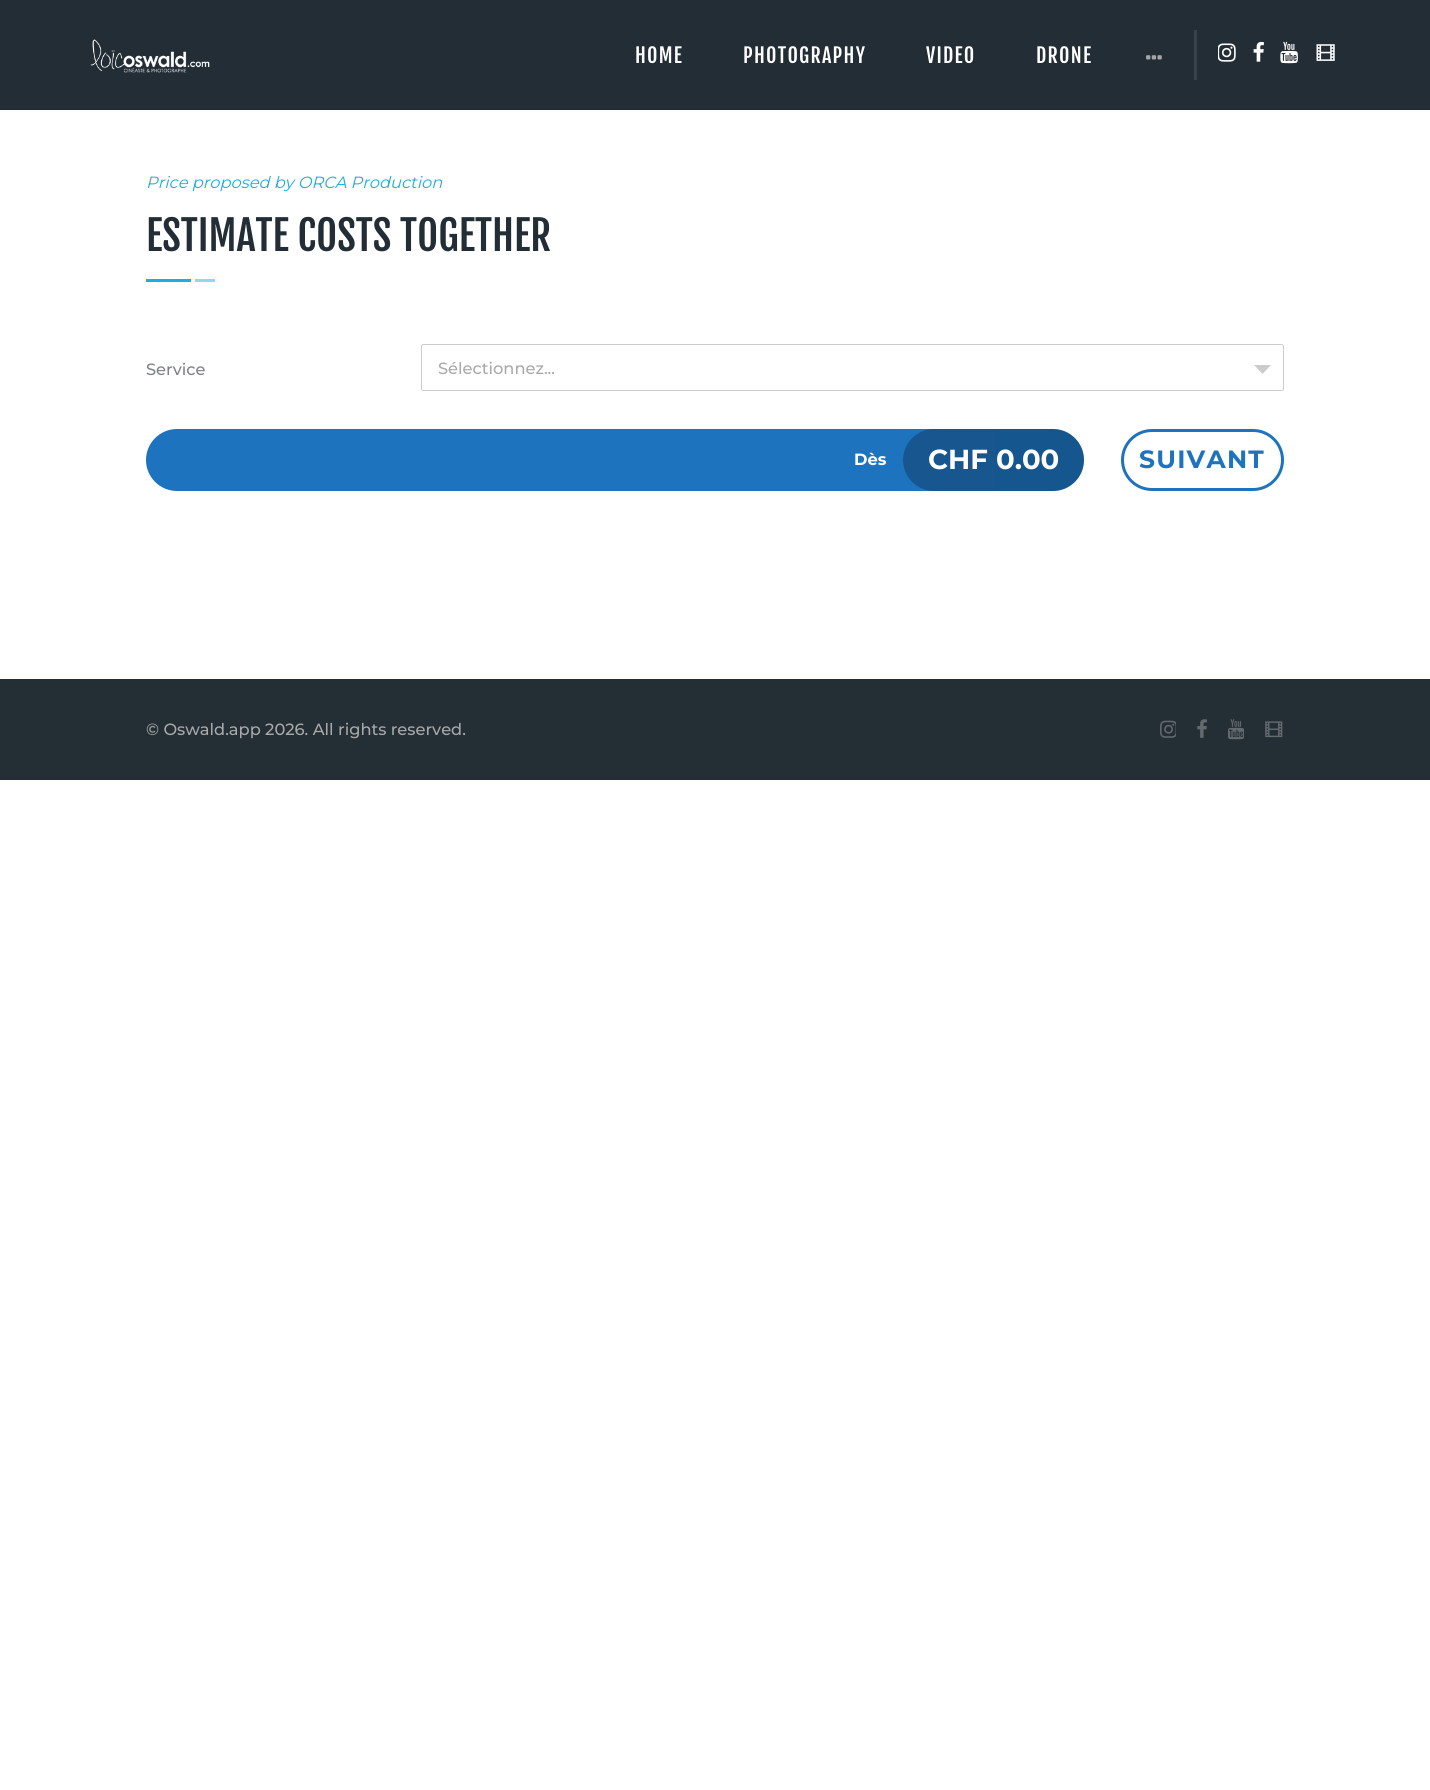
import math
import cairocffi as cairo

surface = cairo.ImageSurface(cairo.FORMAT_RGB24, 1430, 1790)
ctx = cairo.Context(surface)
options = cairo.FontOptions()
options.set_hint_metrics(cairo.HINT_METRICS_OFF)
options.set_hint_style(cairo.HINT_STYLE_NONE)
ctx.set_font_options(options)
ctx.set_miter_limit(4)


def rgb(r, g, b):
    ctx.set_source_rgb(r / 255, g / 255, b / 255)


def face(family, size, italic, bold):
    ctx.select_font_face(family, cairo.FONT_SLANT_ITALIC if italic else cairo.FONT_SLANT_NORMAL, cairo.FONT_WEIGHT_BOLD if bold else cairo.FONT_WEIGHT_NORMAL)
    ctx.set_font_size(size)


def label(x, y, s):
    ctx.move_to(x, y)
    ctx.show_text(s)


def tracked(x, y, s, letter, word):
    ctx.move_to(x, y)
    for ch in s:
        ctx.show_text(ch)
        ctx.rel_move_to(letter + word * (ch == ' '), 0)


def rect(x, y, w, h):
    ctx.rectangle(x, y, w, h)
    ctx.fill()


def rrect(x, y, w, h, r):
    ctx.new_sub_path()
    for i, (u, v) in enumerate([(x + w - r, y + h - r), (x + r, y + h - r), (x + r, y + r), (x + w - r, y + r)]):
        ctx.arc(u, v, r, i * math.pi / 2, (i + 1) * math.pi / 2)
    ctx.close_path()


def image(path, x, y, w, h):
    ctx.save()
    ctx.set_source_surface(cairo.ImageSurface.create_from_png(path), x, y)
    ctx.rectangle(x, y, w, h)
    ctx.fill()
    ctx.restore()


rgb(255, 255, 255)
ctx.paint()
rgb(34, 45, 53)
rect(0, 0, 1430, 110)
image('image0.png', 90, 39, 120, 34)
face('Fjalla One', 20, 0, 0)
rgb(255, 255, 255)
tracked(635, 63, 'HOME', 1.25, 0)
tracked(743, 63, 'PHOTOGRAPHY', 1.25, 0)
tracked(926, 63, 'VIDEO', 1.25, 0)
tracked(1036, 63, 'DRONE', 1.25, 0)
image('image1.png', 1146, 55, 16, 5)
rgb(57, 66, 74)
rect(1194, 30, 3, 50)
image('image2.png', 1218, 43, 18, 19)
image('image3.png', 1253, 41, 11, 21)
image('image4.png', 1280, 41, 18, 23)
image('image5.png', 1316, 44, 19, 17)
face('Montserrat', 16.25, 1, 0)
rgb(31, 172, 225)
label(146, 188, 'Price proposed by ORCA Production')
face('Fjalla One', 40.6, 0, 0)
rgb(34, 45, 53)
label(146, 251, 'ESTIMATE COSTS TOGETHER')
rgb(31, 172, 225)
rect(146, 279, 45, 3)
rgb(143, 214, 240)
rect(195, 279, 20, 3)
face('Montserrat Medium', 16.25, 0, 0)
rgb(126, 130, 133)
label(146, 375, 'Service')
rrect(421.5, 344.5, 862, 46, 2)
rgb(204, 204, 204)
ctx.set_line_width(1)
ctx.stroke()
rgb(169, 169, 169)
label(438, 374, 'Sélectionnez...')
rgb(204, 204, 204)
ctx.new_path()
ctx.move_to(1254, 365)
ctx.line_to(1271, 365)
ctx.line_to(1262.5, 374)
ctx.close_path()
ctx.fill()
rgb(30, 115, 190)
rrect(146, 429, 938, 62, 31)
ctx.fill()
face('Montserrat', 16.25, 0, 1)
rgb(255, 255, 255)
label(854, 465, 'Dès')
rgb(23, 86, 143)
ctx.new_path()
ctx.move_to(934, 429)
ctx.line_to(995, 429)
ctx.line_to(995, 491)
ctx.line_to(934, 491)
ctx.curve_to(917, 491, 903, 477, 903, 460)
ctx.curve_to(903, 443, 917, 429, 934, 429)
ctx.close_path()
ctx.fill()
face('Montserrat', 27.5, 0, 1)
rgb(255, 255, 255)
label(928, 469, 'CHF')
ctx.set_source_rgba(0, 0, 0, 0.25)
ctx.new_path()
ctx.move_to(995, 429)
ctx.line_to(1053, 429)
ctx.curve_to(1070, 429, 1084, 443, 1084, 460)
ctx.curve_to(1084, 477, 1070, 491, 1053, 491)
ctx.line_to(995, 491)
ctx.close_path()
ctx.fill()
rgb(255, 255, 255)
label(996, 469, '0.00')
rrect(1122.5, 430.5, 160, 59, 29.5)
rgb(30, 115, 190)
ctx.set_line_width(3)
ctx.stroke()
face('Montserrat', 25, 0, 1)
tracked(1139, 468, 'SUIVANT', 1.25, 0)
rgb(35, 46, 53)
rect(0, 679, 1430, 101)
face('Montserrat Medium', 16.25, 0, 0)
rgb(169, 169, 169)
label(146, 735, '© Oswald.app 2026. All rights reserved.')
image('image6.png', 1160, 720, 16, 18)
image('image7.png', 1197, 719, 10, 19)
image('image8.png', 1228, 719, 16, 21)
image('image9.png', 1265, 721, 18, 17)
surface.write_to_png('render.png')
